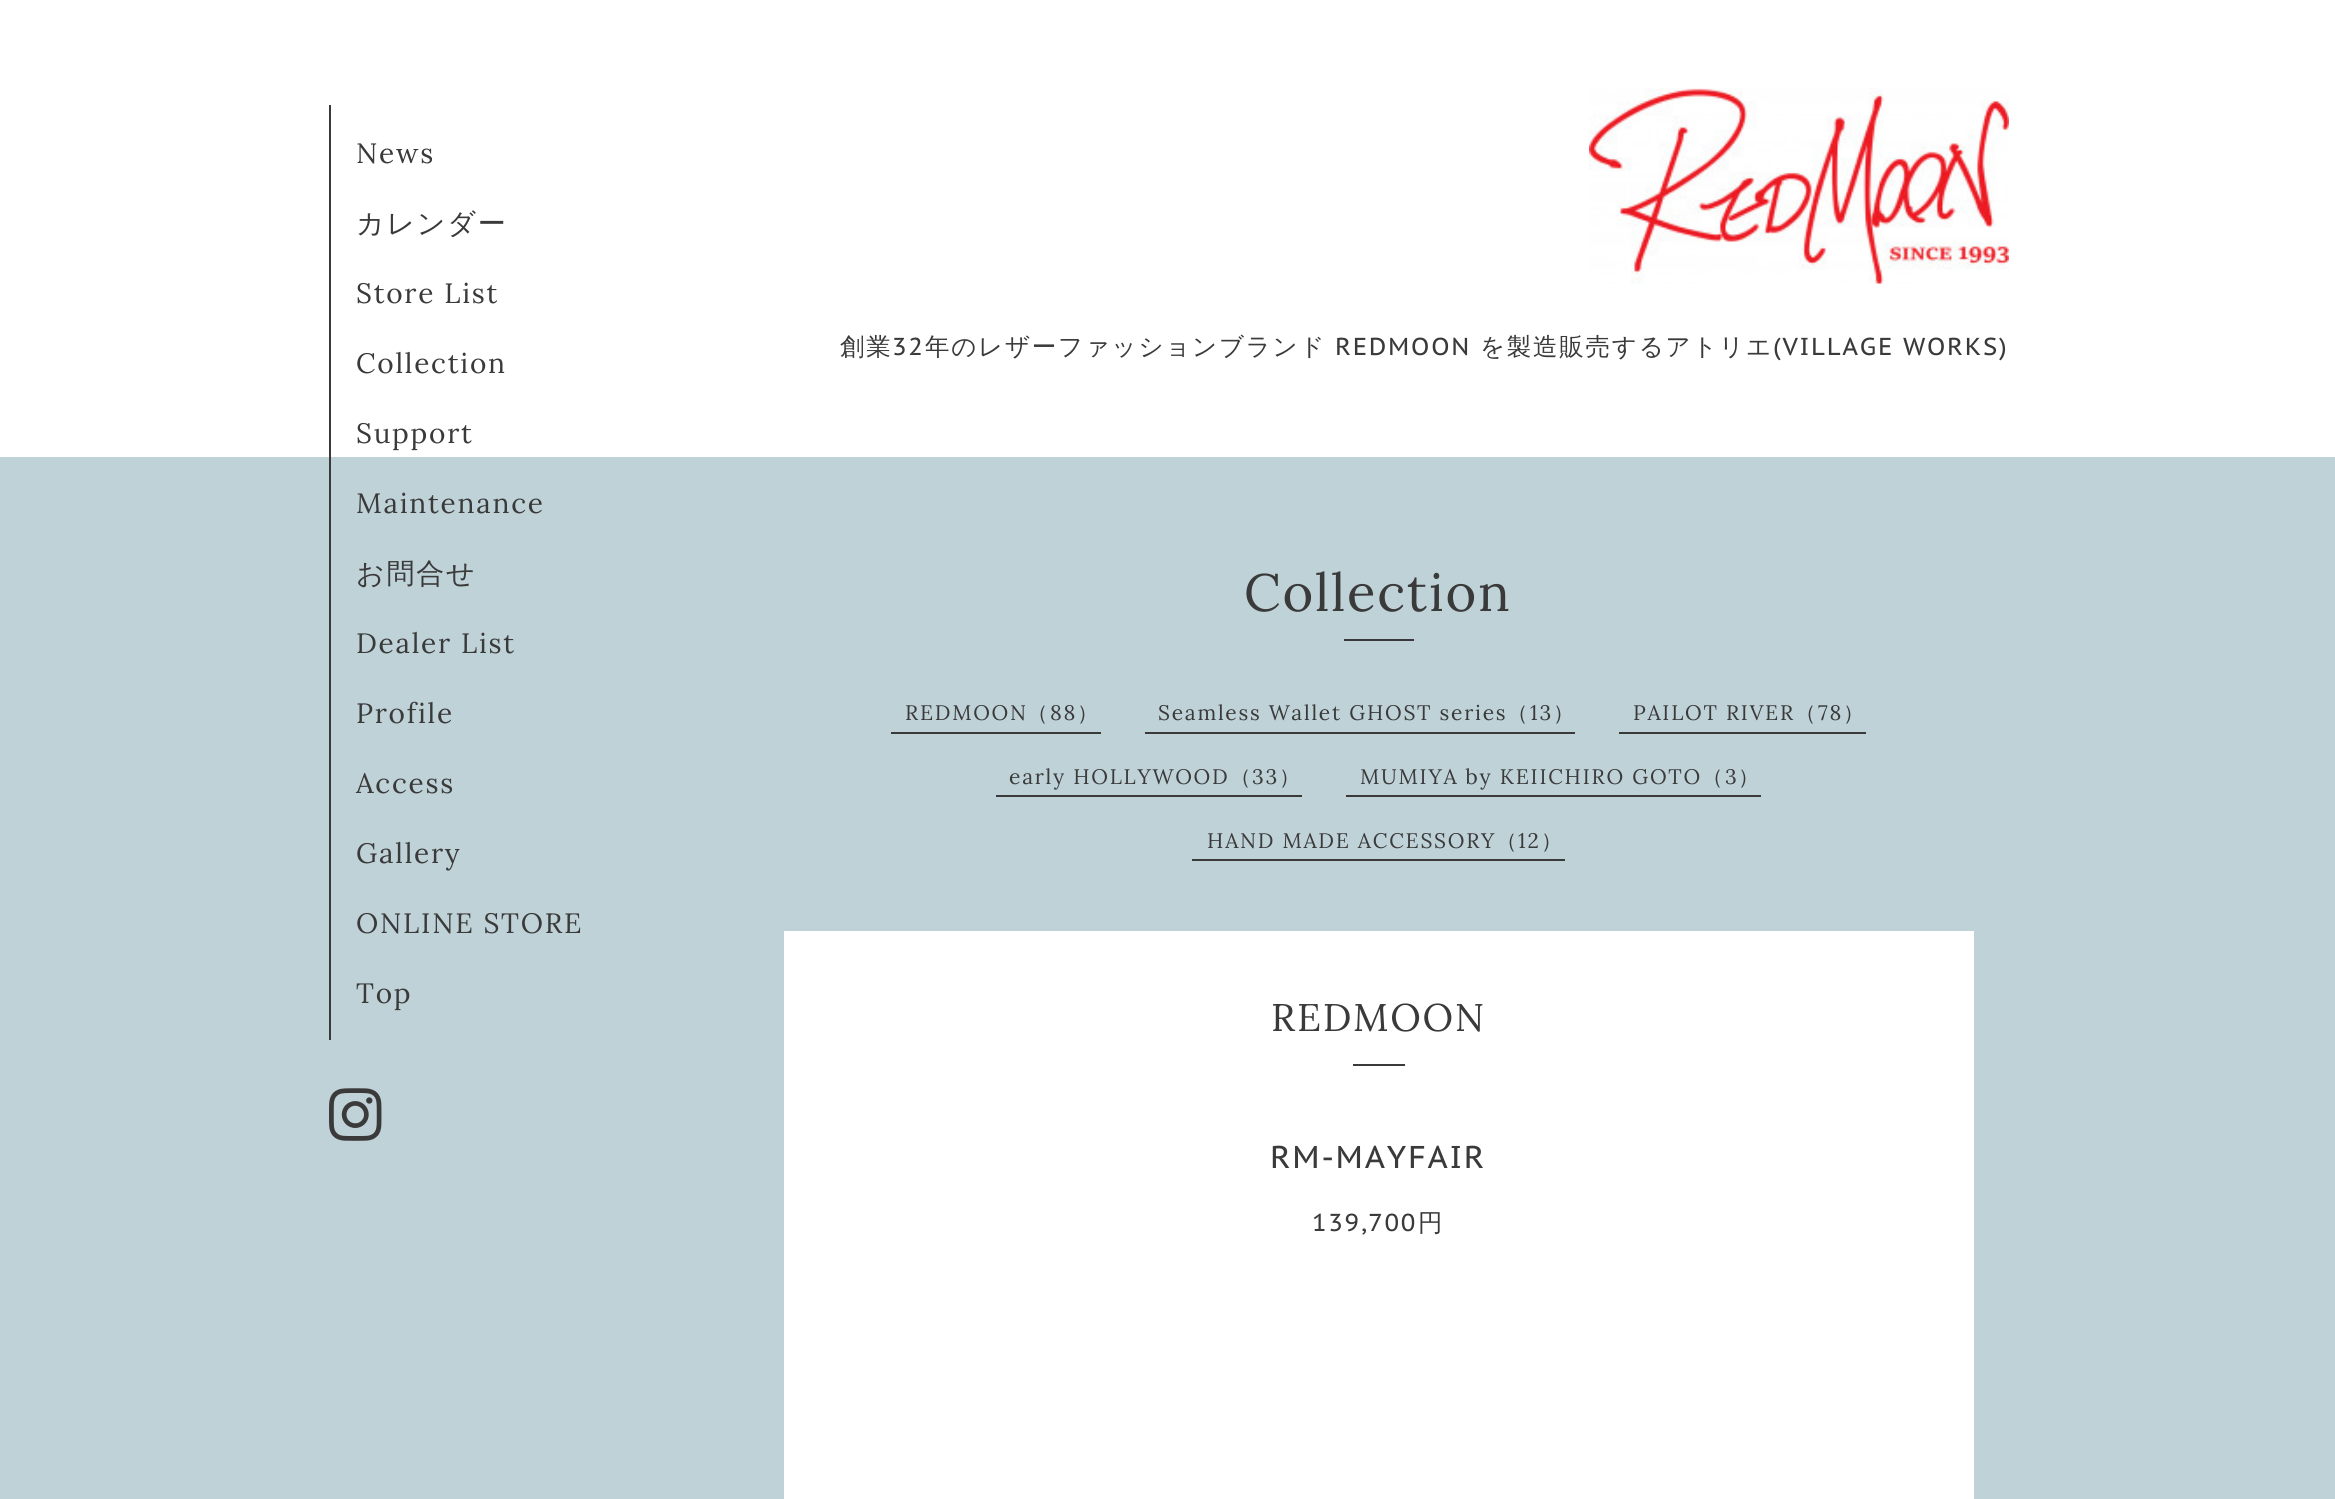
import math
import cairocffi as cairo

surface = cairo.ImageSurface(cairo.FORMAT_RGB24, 2335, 1499)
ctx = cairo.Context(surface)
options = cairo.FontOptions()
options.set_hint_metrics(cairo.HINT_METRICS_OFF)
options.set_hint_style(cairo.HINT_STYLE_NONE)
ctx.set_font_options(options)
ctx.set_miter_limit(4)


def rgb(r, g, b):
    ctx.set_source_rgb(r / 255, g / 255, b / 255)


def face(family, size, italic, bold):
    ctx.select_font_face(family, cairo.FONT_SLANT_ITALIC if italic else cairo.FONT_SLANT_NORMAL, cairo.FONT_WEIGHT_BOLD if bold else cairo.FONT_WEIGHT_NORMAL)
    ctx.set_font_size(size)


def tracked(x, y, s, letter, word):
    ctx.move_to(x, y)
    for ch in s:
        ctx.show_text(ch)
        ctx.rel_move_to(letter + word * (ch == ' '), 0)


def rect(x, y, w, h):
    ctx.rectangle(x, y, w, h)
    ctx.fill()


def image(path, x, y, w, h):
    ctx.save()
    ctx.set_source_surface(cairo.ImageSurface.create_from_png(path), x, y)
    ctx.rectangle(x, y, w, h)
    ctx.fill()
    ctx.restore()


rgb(255, 255, 255)
ctx.paint()
rgb(191, 210, 216)
rect(0, 457, 2335, 1042)
rgb(58, 58, 58)
rect(329, 105, 2, 935)
face('Lora', 28, 0, 0)
tracked(356, 163, 'News', 1.75, 0)
face('WenQuanYi Zen Hei Medium', 28, 0, 0)
tracked(356, 233, 'カレンダー', 1.75, 0)
face('Lora', 28, 0, 0)
tracked(356, 303, 'Store List', 1.75, 0)
tracked(356, 373, 'Collection', 1.75, 0)
tracked(356, 443, 'Support', 1.75, 0)
tracked(356, 513, 'Maintenance', 1.75, 0)
face('WenQuanYi Zen Hei Medium', 28, 0, 0)
tracked(356, 583, 'お問合せ', 1.75, 0)
face('Lora', 28, 0, 0)
tracked(356, 653, 'Dealer List', 1.75, 0)
tracked(356, 723, 'Profile', 1.75, 0)
tracked(356, 793, 'Access', 1.75, 0)
tracked(356, 863, 'Gallery', 1.75, 0)
tracked(356, 933, 'ONLINE STORE', 1.75, 0)
tracked(356, 1003, 'Top', 1.75, 0)
image('image0.png', 329, 1088, 53, 53)
image('image1.png', 1589, 87, 420, 197)
face('WenQuanYi Zen Hei Medium', 24.5, 0, 0)
tracked(840, 355, '創業', 1.75, 0)
face('PT Sans Caption', 24.5, 0, 0)
tracked(892, 355, '32', 1.75, 0)
face('WenQuanYi Zen Hei Medium', 24.5, 0, 0)
tracked(925, 355, '年のレザーファッションブランド', 1.75, 0)
face('PT Sans Caption', 24.5, 0, 0)
tracked(1335, 355, 'REDMOON', 1.75, 0)
face('WenQuanYi Zen Hei Medium', 24.5, 0, 0)
tracked(1480, 355, 'を製造販売するアトリエ', 1.75, 0)
face('PT Sans Caption', 24.5, 0, 0)
tracked(1773, 355, '(VILLAGE WORKS)', 1.75, 0)
face('Lora', 52.5, 0, 0)
tracked(1244, 611, 'Collection', 1.75, 0)
rect(1344, 639, 70, 2)
rect(891, 732, 210, 2)
face('Lora', 21, 0, 0)
tracked(905, 720, 'REDMOON', 1.75, 0)
face('WenQuanYi Zen Hei Medium', 21, 0, 0)
tracked(1027, 720, '（', 1.75, 0)
face('Lora', 21, 0, 0)
tracked(1050, 720, '88', 1.75, 0)
face('WenQuanYi Zen Hei Medium', 21, 0, 0)
tracked(1077, 720, '）', 1.75, 0)
rect(1145, 732, 430, 2)
face('Lora', 21, 0, 0)
tracked(1158, 720, 'Seamless Wallet GHOST series', 1.75, 0)
face('WenQuanYi Zen Hei Medium', 21, 0, 0)
tracked(1507, 720, '（', 1.75, 0)
face('Lora', 21, 0, 0)
tracked(1530, 720, '13', 1.75, 0)
face('WenQuanYi Zen Hei Medium', 21, 0, 0)
tracked(1553, 720, '）', 1.75, 0)
rect(1619, 732, 247, 2)
face('Lora', 21, 0, 0)
tracked(1633, 720, 'PAILOT RIVER', 1.75, 0)
face('WenQuanYi Zen Hei Medium', 21, 0, 0)
tracked(1795, 720, '（', 1.75, 0)
face('Lora', 21, 0, 0)
tracked(1818, 720, '78', 1.75, 0)
face('WenQuanYi Zen Hei Medium', 21, 0, 0)
tracked(1843, 720, '）', 1.75, 0)
rect(996, 795, 306, 2)
face('Lora', 21, 0, 0)
tracked(1009, 784, 'early HOLLYWOOD', 1.75, 0)
face('WenQuanYi Zen Hei Medium', 21, 0, 0)
tracked(1230, 784, '（', 1.75, 0)
face('Lora', 21, 0, 0)
tracked(1252, 784, '33', 1.75, 0)
face('WenQuanYi Zen Hei Medium', 21, 0, 0)
tracked(1279, 784, '）', 1.75, 0)
rect(1346, 795, 415, 2)
face('Lora', 21, 0, 0)
tracked(1360, 784, 'MUMIYA by KEIICHIRO GOTO', 1.75, 0)
face('WenQuanYi Zen Hei Medium', 21, 0, 0)
tracked(1702, 784, '（', 1.75, 0)
face('Lora', 21, 0, 0)
tracked(1725, 784, '3', 1.75, 0)
face('WenQuanYi Zen Hei Medium', 21, 0, 0)
tracked(1738, 784, '）', 1.75, 0)
rect(1192, 859, 373, 2)
face('Lora', 21, 0, 0)
tracked(1207, 848, 'HAND MADE ACCESSORY', 1.75, 0)
face('WenQuanYi Zen Hei Medium', 21, 0, 0)
tracked(1496, 848, '（', 1.75, 0)
face('Lora', 21, 0, 0)
tracked(1518, 848, '12', 1.75, 0)
face('WenQuanYi Zen Hei Medium', 21, 0, 0)
tracked(1541, 848, '）', 1.75, 0)
rgb(255, 255, 255)
rect(784, 931, 1190, 568)
face('Lora', 38.5, 0, 0)
rgb(58, 58, 58)
tracked(1271, 1031, 'REDMOON', 1.75, 0)
rect(1353, 1064, 52, 2)
face('PT Sans Caption', 31.5, 0, 0)
tracked(1270, 1168, 'RM-MAYFAIR', 1.75, 0)
face('PT Sans Caption', 24.5, 0, 0)
tracked(1312, 1231, '139,700', 1.75, 0)
face('WenQuanYi Zen Hei Medium', 24.5, 0, 0)
tracked(1418, 1231, '円', 1.75, 0)
surface.write_to_png('render.png')
